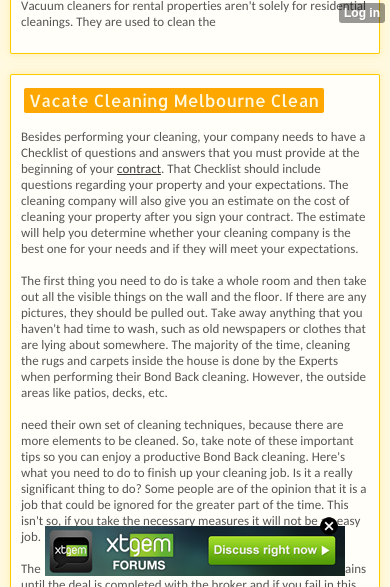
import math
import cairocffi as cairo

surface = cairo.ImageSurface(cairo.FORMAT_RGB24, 390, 587)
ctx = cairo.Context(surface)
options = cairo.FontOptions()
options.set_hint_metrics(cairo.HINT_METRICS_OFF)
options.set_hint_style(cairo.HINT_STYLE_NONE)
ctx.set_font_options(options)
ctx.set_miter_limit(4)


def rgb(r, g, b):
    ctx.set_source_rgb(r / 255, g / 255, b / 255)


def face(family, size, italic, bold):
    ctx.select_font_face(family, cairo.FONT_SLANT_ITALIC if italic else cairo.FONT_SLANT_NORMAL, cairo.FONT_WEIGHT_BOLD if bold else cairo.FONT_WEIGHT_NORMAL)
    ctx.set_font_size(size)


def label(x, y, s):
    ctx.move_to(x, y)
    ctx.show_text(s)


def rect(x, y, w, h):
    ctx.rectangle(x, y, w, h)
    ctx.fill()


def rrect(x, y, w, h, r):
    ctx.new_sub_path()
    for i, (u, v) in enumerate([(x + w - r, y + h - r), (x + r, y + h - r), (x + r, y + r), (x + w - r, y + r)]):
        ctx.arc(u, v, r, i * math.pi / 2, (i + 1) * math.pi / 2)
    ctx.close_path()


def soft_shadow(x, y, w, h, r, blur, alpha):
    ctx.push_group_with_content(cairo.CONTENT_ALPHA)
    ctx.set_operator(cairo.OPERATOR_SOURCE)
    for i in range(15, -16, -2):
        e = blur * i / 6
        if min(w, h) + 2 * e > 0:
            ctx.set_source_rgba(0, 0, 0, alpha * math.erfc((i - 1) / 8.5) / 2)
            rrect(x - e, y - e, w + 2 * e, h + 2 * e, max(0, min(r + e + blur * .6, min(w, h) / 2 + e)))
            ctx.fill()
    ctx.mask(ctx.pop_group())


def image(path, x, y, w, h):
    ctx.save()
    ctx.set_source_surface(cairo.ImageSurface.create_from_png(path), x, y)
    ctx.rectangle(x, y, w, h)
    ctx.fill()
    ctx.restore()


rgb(255, 249, 225)
ctx.paint()
rgb(255, 239, 174)
soft_shadow(10, -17, 370, 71, 2, 5, 1)
rgb(255, 254, 249)
rrect(10.5, -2.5, 369, 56, 1.5)
ctx.fill_preserve()
rgb(255, 204, 0)
ctx.set_line_width(1)
ctx.stroke()
face('Carlito', 13, 0, 0)
rgb(85, 85, 85)
label(21, 10, 'Vacuum cleaners for rental properties aren\'t solely for residential')
label(21, 26, 'cleanings. They are used to clean the')
image('image0.png', 339, 3, 46, 20)
rgb(255, 239, 174)
soft_shadow(10, 74, 370, 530, 2, 5, 1)
rgb(255, 254, 249)
rrect(10.5, 74.5, 369, 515, 1.5)
ctx.fill_preserve()
rgb(255, 204, 0)
ctx.stroke()
rgb(254, 167, 0)
rrect(24, 88, 300, 25, 2)
ctx.fill()
face('Allerta', 17, 0, 0)
rgb(255, 249, 225)
label(29, 107, 'Vacate Cleaning Melbourne Clean')
face('Carlito', 13, 0, 0)
rgb(85, 85, 85)
label(21, 141, 'Besides performing your cleaning, your company needs to have a')
label(21, 157, 'Checklist of questions and answers that you must provide at the')
label(21, 173, 'beginning of your')
rgb(60, 60, 60)
label(117, 173, 'contract')
rect(117, 174, 44, 1)
rgb(85, 85, 85)
label(161, 173, '. That Checklist should include')
label(21, 189, 'questions regarding your property and your expectations. The')
label(21, 205, 'cleaning company will also give you an estimate on the cost of')
label(21, 221, 'cleaning your property after you sign your contract. The estimate')
label(21, 237, 'will help you determine whether your cleaning company is the')
label(21, 253, 'best one for your needs and if they will meet your expectations.')
label(21, 285, 'The first thing you need to do is take a whole room and then take')
label(21, 301, 'out all the visible things on the wall and the floor. If there are any')
label(21, 317, 'pictures, they should be pulled out. Take away anything that you')
label(21, 333, 'haven\'t had time to wash, such as old newspapers or clothes that')
label(21, 349, 'are lying about somewhere. The majority of the time, cleaning')
label(21, 365, 'the rugs and carpets inside the house is done by the Experts')
label(21, 381, 'when performing their Bond Back cleaning. However, the outside')
label(21, 397, 'areas like patios, decks, etc.')
label(21, 429, 'need their own set of cleaning techniques, because there are')
label(21, 445, 'more elements to be cleaned. So, take note of these important')
label(21, 461, 'tips so you can enjoy a productive Bond Back cleaning. Here\'s')
label(21, 477, 'what you need to do to finish up your cleaning job. Is it a really')
label(21, 493, 'significant thing to do? Some people are of the opinion that it is a')
label(21, 509, 'job that could be ignored for the greater part of the time. This')
label(21, 525, 'isn\'t so, if you take the necessary measures it will not be an easy')
label(21, 541, 'job.')
label(21, 573, 'The')
label(345, 573, 'ains')
label(21, 589, 'until the deal is completed with the broker and if you fail in this')
image('image2.png', 45, 526, 300, 50)
image('image1.png', 320, 517, 18, 18)
surface.write_to_png('render.png')
